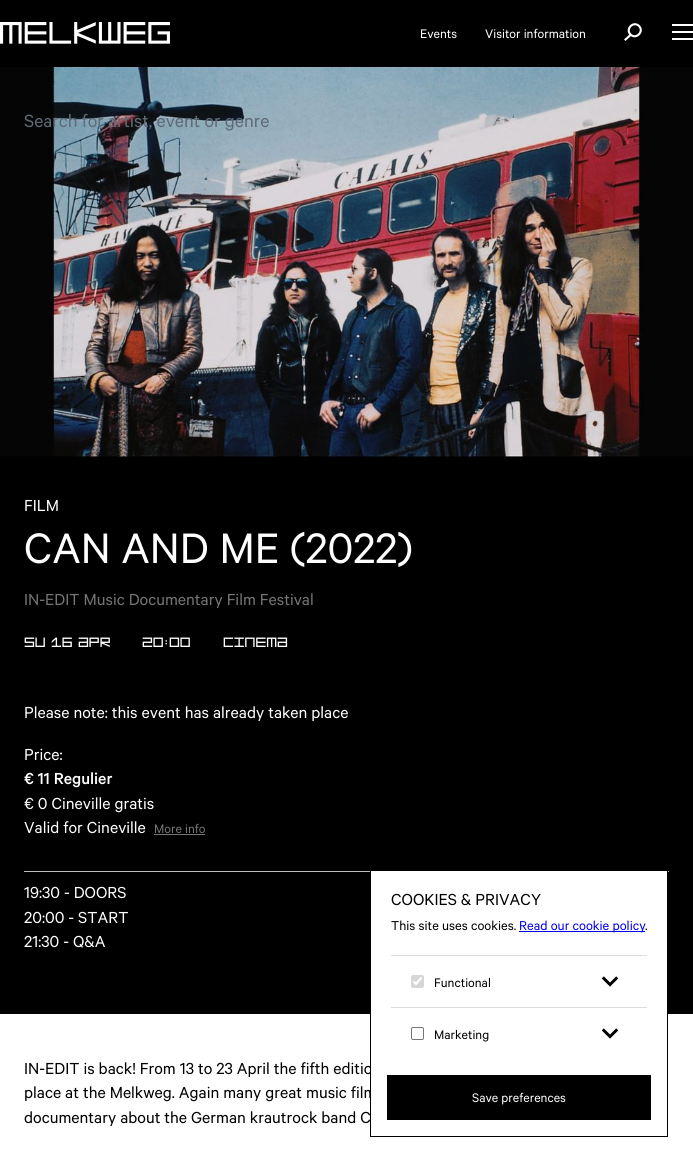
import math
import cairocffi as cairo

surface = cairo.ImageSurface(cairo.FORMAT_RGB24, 693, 1162)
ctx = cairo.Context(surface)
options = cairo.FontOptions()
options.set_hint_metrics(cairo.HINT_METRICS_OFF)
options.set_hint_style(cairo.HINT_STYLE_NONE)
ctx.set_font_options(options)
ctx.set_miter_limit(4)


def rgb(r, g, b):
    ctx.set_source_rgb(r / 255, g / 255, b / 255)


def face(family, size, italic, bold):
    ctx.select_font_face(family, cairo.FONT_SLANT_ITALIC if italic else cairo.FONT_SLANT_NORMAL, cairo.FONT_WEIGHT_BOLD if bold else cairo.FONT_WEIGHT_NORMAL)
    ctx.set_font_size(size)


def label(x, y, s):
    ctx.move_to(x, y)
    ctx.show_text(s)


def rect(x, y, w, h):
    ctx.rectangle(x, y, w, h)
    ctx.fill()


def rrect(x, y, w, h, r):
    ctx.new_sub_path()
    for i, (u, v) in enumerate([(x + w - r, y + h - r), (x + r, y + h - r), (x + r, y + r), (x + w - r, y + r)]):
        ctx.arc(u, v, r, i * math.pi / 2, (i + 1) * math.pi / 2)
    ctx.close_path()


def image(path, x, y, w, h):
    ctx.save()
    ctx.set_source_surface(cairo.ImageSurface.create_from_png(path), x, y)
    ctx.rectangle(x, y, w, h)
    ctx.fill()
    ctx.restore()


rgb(255, 255, 255)
ctx.paint()
rgb(0, 0, 0)
rect(0, 0, 693, 67)
image('image0.png', 0, 22, 170, 22)
face('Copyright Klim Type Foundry', 14, 0, 0)
rgb(255, 255, 255)
label(420, 38, 'Events')
label(485, 38, 'Visitor information')
ctx.new_path()
ctx.move_to(639, 26)
ctx.curve_to(644.5, 31.5, 636, 40, 630.5, 34.5)
ctx.curve_to(625, 29, 633.5, 20.5, 639, 26)
ctx.close_path()
ctx.set_line_width(2.1)
ctx.stroke()
ctx.new_path()
ctx.move_to(630.5, 35)
ctx.line_to(625.5, 39.5)
ctx.set_line_cap(cairo.LINE_CAP_SQUARE)
ctx.stroke()
rect(672, 24, 21, 2)
rect(672, 31, 21, 2)
rect(672, 38, 21, 2)
image('image1.png', 0, 67, 693, 390)
face('Copyright Klim Type Foundry', 20, 0, 0)
rgb(95, 107, 118)
label(24, 127, 'Search for artist, event or genre')
rgb(0, 0, 0)
rect(0, 457, 693, 557)
face('Copyright Klim Type Foundry', 18, 0, 0)
rgb(255, 255, 255)
label(24, 511, 'FILM')
face('Copyright Klim Type Foundry', 48, 0, 0)
label(24, 563, 'CAN AND ME (2022)')
face('Copyright Klim Type Foundry', 18, 0, 0)
rgb(117, 117, 117)
label(24, 605, 'IN-EDIT Music Documentary Film Festival')
face('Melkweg', 18, 0, 0)
rgb(255, 255, 255)
label(24, 647, 'SU 16 APR')
label(142, 647, '20:00')
label(223, 647, 'Cinema')
face('Copyright Klim Type Foundry', 18, 0, 0)
label(24, 718, 'Please note: this event has already taken place')
label(24, 760, 'Price:')
face('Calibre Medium', 18, 0, 0)
label(24, 784, '€ 11 Regulier')
face('Copyright Klim Type Foundry', 18, 0, 0)
label(24, 809, '€ 0 Cineville gratis')
label(24, 833, 'Valid for Cineville')
face('Copyright Klim Type Foundry', 14, 0, 0)
rgb(117, 117, 117)
label(154, 833, 'More info')
rect(154, 834, 51, 1)
rgb(189, 189, 189)
rect(24, 871, 645, 1)
face('Copyright Klim Type Foundry', 18, 0, 0)
rgb(255, 255, 255)
label(24, 898, '19:30 - DOORS')
label(24, 923, '20:00 - START')
label(24, 947, '21:30 - Q&A')
rgb(0, 0, 0)
label(24, 1074, 'IN-EDIT is back! From 13 to 23 April the fifth editio')
label(24, 1098, 'place at the Melkweg. Again many great music film')
label(24, 1123, 'documentary about the German krautrock band C')
rgb(255, 255, 255)
rect(371, 871, 296, 227)
ctx.rectangle(370.5, 870.5, 297, 266)
rgb(0, 0, 0)
ctx.set_line_width(1)
ctx.set_line_cap(cairo.LINE_CAP_BUTT)
ctx.stroke()
label(391, 905, 'COOKIES & PRIVACY')
face('Copyright Klim Type Foundry', 14.5, 0, 0)
label(391, 930, 'This site uses cookies.')
rgb(0, 0, 238)
rect(519, 931, 126, 1)
label(519, 930, 'Read our cookie policy')
rgb(0, 0, 0)
label(645, 930, '.')
rgb(221, 221, 221)
rect(391, 955, 256, 1)
rgb(214, 214, 214)
rrect(411, 975, 13, 13, 2)
ctx.fill()
ctx.new_path()
ctx.move_to(413.5, 981.5)
ctx.line_to(416, 984)
ctx.line_to(421.5, 977.5)
rgb(255, 255, 255)
ctx.set_line_width(2.1)
ctx.stroke()
face('Copyright Klim Type Foundry', 14, 0, 0)
rgb(0, 0, 0)
label(434, 987, 'Functional')
image('image2.png', 601, 976, 18, 11)
rgb(221, 221, 221)
rect(391, 1007, 256, 1)
rrect(411.5, 1027.5, 12, 12, 1.5)
rgb(118, 118, 118)
ctx.set_line_width(1)
ctx.stroke()
rgb(0, 0, 0)
label(434, 1039, 'Marketing')
image('image2.png', 601, 1028, 18, 11)
rect(387, 1075, 264, 45)
rgb(255, 255, 255)
label(472, 1102, 'Save preferences')
surface.write_to_png('render.png')
